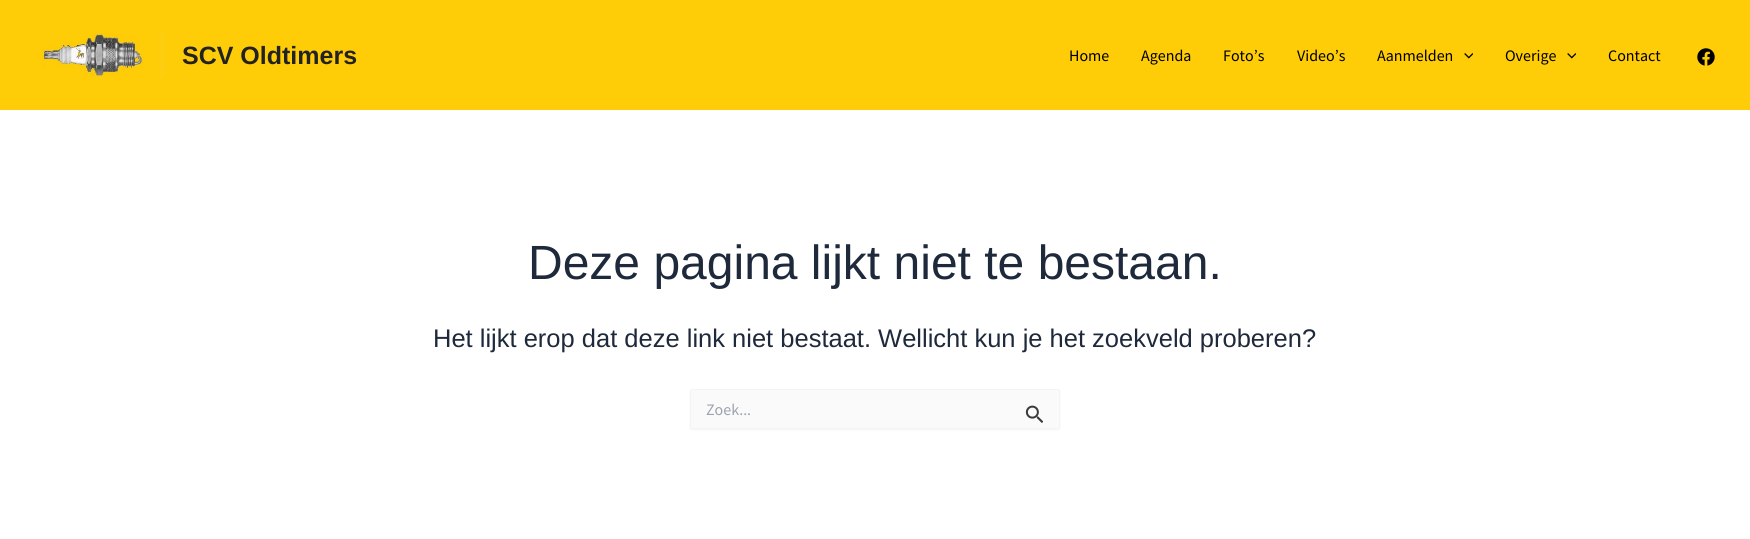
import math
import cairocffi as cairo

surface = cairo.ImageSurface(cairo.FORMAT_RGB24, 1750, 539)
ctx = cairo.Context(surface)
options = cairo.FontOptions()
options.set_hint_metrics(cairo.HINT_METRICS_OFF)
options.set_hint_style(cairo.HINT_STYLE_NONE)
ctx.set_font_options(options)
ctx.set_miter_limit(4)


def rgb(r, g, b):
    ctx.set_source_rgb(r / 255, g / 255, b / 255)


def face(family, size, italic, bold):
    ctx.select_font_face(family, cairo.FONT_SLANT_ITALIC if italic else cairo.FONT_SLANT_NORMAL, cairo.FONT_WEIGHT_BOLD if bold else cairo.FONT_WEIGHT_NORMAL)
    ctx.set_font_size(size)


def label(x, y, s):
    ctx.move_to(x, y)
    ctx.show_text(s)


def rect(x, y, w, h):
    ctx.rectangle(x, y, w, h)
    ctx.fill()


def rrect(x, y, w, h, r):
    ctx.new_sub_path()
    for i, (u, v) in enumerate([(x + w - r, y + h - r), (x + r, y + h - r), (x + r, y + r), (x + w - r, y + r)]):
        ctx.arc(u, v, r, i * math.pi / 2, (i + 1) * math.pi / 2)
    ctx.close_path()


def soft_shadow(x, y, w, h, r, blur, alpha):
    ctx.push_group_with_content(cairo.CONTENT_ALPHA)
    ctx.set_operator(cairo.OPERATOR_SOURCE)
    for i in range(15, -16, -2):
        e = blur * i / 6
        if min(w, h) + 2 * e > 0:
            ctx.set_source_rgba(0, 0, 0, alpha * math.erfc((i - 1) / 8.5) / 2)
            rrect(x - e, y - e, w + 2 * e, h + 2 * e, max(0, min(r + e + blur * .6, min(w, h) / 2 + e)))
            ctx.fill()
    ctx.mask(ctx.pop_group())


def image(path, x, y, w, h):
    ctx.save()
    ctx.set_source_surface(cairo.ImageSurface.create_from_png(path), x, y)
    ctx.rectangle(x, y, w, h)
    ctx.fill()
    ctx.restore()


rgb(255, 255, 255)
ctx.paint()
rgb(255, 204, 8)
rect(0, 0, 1750, 110)
image('image0.png', 42, 33, 123, 44)
face('Liberation Sans', 25, 0, 1)
rgb(34, 34, 34)
label(182, 64, 'SCV Oldtimers')
face('Source Sans Pro', 16, 0, 0)
rgb(0, 0, 0)
label(1069, 61, 'Home')
label(1141, 61, 'Agenda')
label(1223, 61, 'Foto’s')
label(1297, 61, 'Video’s')
label(1377, 61, 'Aanmelden')
image('image1.png', 1464, 53, 9, 6)
label(1505, 61, 'Overige')
image('image1.png', 1567, 53, 9, 6)
label(1608, 61, 'Contact')
image('image2.png', 1697, 48, 18, 18)
face('Liberation Sans', 48, 0, 0)
rgb(30, 41, 59)
label(528, 279, 'Deze pagina lijkt niet te bestaan.')
face('Liberation Sans', 25.5, 0, 0)
label(433, 347, 'Het lijkt erop dat deze link niet bestaat. Wellicht kun je het zoekveld proberen?')
rgb(0, 0, 0)
soft_shadow(690, 390, 370, 40, 2, 1, 0.05)
rgb(250, 250, 250)
rrect(690.5, 389.5, 369, 39, 1.5)
ctx.fill_preserve()
rgb(242, 245, 247)
ctx.set_line_width(1)
ctx.stroke()
face('Source Sans Pro', 16, 0, 0)
rgb(156, 163, 175)
label(706, 415, 'Zoek...')
image('image3.png', 1025, 405, 18, 18)
surface.write_to_png('render.png')
